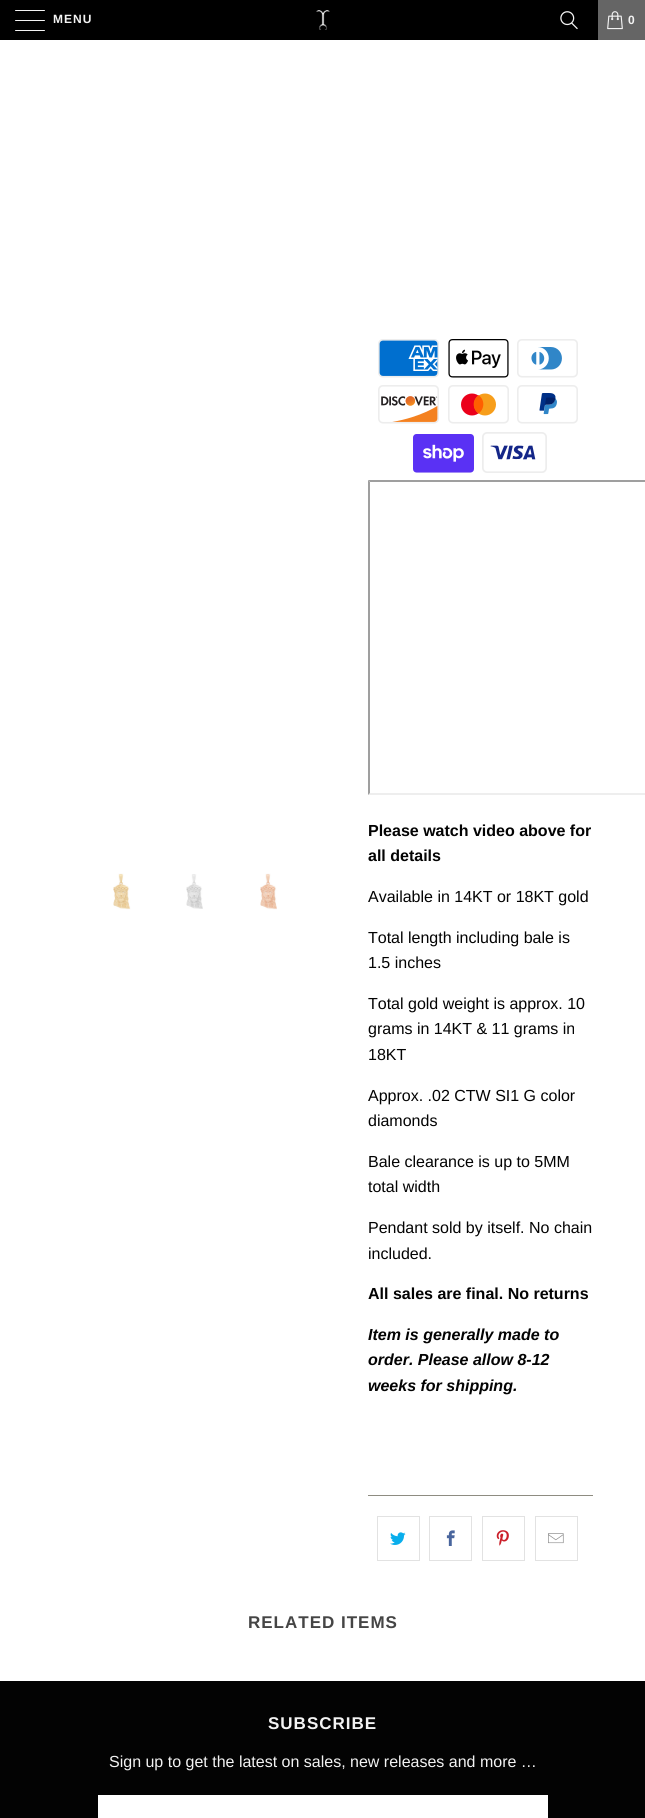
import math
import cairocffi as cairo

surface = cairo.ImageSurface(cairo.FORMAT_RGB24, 645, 1818)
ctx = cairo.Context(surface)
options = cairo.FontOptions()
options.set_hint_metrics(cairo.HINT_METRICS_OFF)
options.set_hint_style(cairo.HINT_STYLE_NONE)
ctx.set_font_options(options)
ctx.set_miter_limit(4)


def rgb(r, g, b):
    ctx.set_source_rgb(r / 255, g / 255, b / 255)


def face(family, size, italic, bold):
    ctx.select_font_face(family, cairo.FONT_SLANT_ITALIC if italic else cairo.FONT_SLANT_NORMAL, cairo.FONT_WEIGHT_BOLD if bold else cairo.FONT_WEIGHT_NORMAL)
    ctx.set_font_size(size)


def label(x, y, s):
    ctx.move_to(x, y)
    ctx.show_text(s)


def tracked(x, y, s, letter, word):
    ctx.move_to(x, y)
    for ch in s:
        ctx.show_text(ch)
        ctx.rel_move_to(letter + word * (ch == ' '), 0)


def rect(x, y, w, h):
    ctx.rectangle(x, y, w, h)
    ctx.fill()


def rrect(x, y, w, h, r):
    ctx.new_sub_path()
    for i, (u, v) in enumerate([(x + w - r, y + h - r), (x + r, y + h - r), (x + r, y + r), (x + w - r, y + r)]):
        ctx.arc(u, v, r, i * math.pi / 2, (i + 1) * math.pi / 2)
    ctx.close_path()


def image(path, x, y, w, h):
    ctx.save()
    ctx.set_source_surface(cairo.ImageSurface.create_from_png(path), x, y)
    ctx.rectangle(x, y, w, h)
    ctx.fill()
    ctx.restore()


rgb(255, 255, 255)
ctx.paint()
rgb(0, 0, 0)
rect(0, 0, 598, 40)
rgb(243, 243, 243)
rrect(15, 10, 30, 1, 0.5)
ctx.fill()
rrect(15, 20, 30, 1, 0.5)
ctx.fill()
rrect(15, 30, 30, 1, 0.5)
ctx.fill()
face('Arimo', 12, 0, 1)
tracked(53, 23, 'MENU', 1, 0)
image('image0.png', 316, 10, 14, 20)
image('image1.png', 560, 11, 18, 19)
rgb(101, 101, 101)
rect(598, 0, 47, 40)
image('image2.png', 607, 11, 16, 19)
rgb(243, 243, 243)
tracked(628, 24, '0', 1, 0)
image('image3.png', 113, 873, 18, 37)
image('image4.png', 186, 874, 17, 35)
image('image5.png', 260, 873, 17, 37)
image('image6.png', 378, 339, 61, 39)
image('image7.png', 448, 339, 61, 39)
image('image8.png', 517, 339, 61, 39)
image('image9.png', 378, 385, 61, 39)
image('image10.png', 448, 385, 61, 39)
image('image11.png', 517, 385, 61, 39)
image('image12.png', 413, 434, 61, 39)
image('image13.png', 482, 432, 65, 41)
rgb(159, 159, 159)
ctx.new_path()
ctx.move_to(368, 480)
ctx.line_to(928, 480)
ctx.line_to(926, 482)
ctx.line_to(370, 482)
ctx.close_path()
ctx.fill()
rgb(238, 238, 238)
ctx.new_path()
ctx.move_to(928, 795)
ctx.line_to(368, 795)
ctx.line_to(370, 793)
ctx.line_to(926, 793)
ctx.close_path()
ctx.fill()
rgb(159, 159, 159)
ctx.new_path()
ctx.move_to(368, 795)
ctx.line_to(368, 480)
ctx.line_to(370, 482)
ctx.line_to(370, 793)
ctx.close_path()
ctx.fill()
face('Arimo', 16, 0, 1)
rgb(3, 3, 3)
label(368, 836, 'Please watch video above for')
label(368, 861, 'all details')
face('Arimo', 16, 0, 0)
label(368, 902, 'Available in 14KT or 18KT gold')
label(368, 943, 'Total length including bale is')
label(368, 968, '1.5 inches')
label(368, 1009, 'Total gold weight is approx. 10')
label(368, 1034, 'grams in 14KT & 11 grams in')
label(368, 1060, '18KT')
label(368, 1101, 'Approx. .02 CTW SI1 G color')
label(368, 1126, 'diamonds')
label(368, 1167, 'Bale clearance is up to 5MM')
label(368, 1192, 'total width')
label(368, 1233, 'Pendant sold by itself. No chain')
label(368, 1259, 'included.')
face('Arimo', 16, 0, 1)
label(368, 1299, 'All sales are final. No returns')
face('Arimo', 16, 1, 1)
label(368, 1340, 'Item is generally made to')
label(368, 1365, 'order. Please allow 8-12')
label(368, 1391, 'weeks for shipping.')
rgb(142, 140, 129)
rect(368, 1495, 225, 1)
ctx.rectangle(377.5, 1516.5, 42, 44)
rgb(226, 226, 226)
ctx.set_line_width(1)
ctx.stroke()
image('image14.png', 390, 1532, 16, 13)
ctx.rectangle(429.5, 1516.5, 42, 44)
ctx.stroke()
image('image15.png', 446, 1530, 9, 16)
ctx.rectangle(482.5, 1516.5, 42, 44)
ctx.stroke()
image('image16.png', 496, 1530, 13, 16)
ctx.rectangle(535.5, 1516.5, 42, 44)
ctx.stroke()
image('image17.png', 548, 1533, 16, 11)
face('Arimo', 17, 0, 1)
rgb(69, 69, 69)
tracked(248, 1628, 'RELATED ITEMS', 1, 0)
rgb(3, 3, 3)
rect(0, 1681, 645, 137)
rgb(243, 243, 243)
tracked(268, 1729, 'SUBSCRIBE', 1, 0)
face('Arimo', 16, 0, 0)
label(109, 1767, 'Sign up to get the latest on sales, new releases and more …')
rgb(255, 255, 255)
rect(98, 1795, 450, 23)
surface.write_to_png('render.png')
